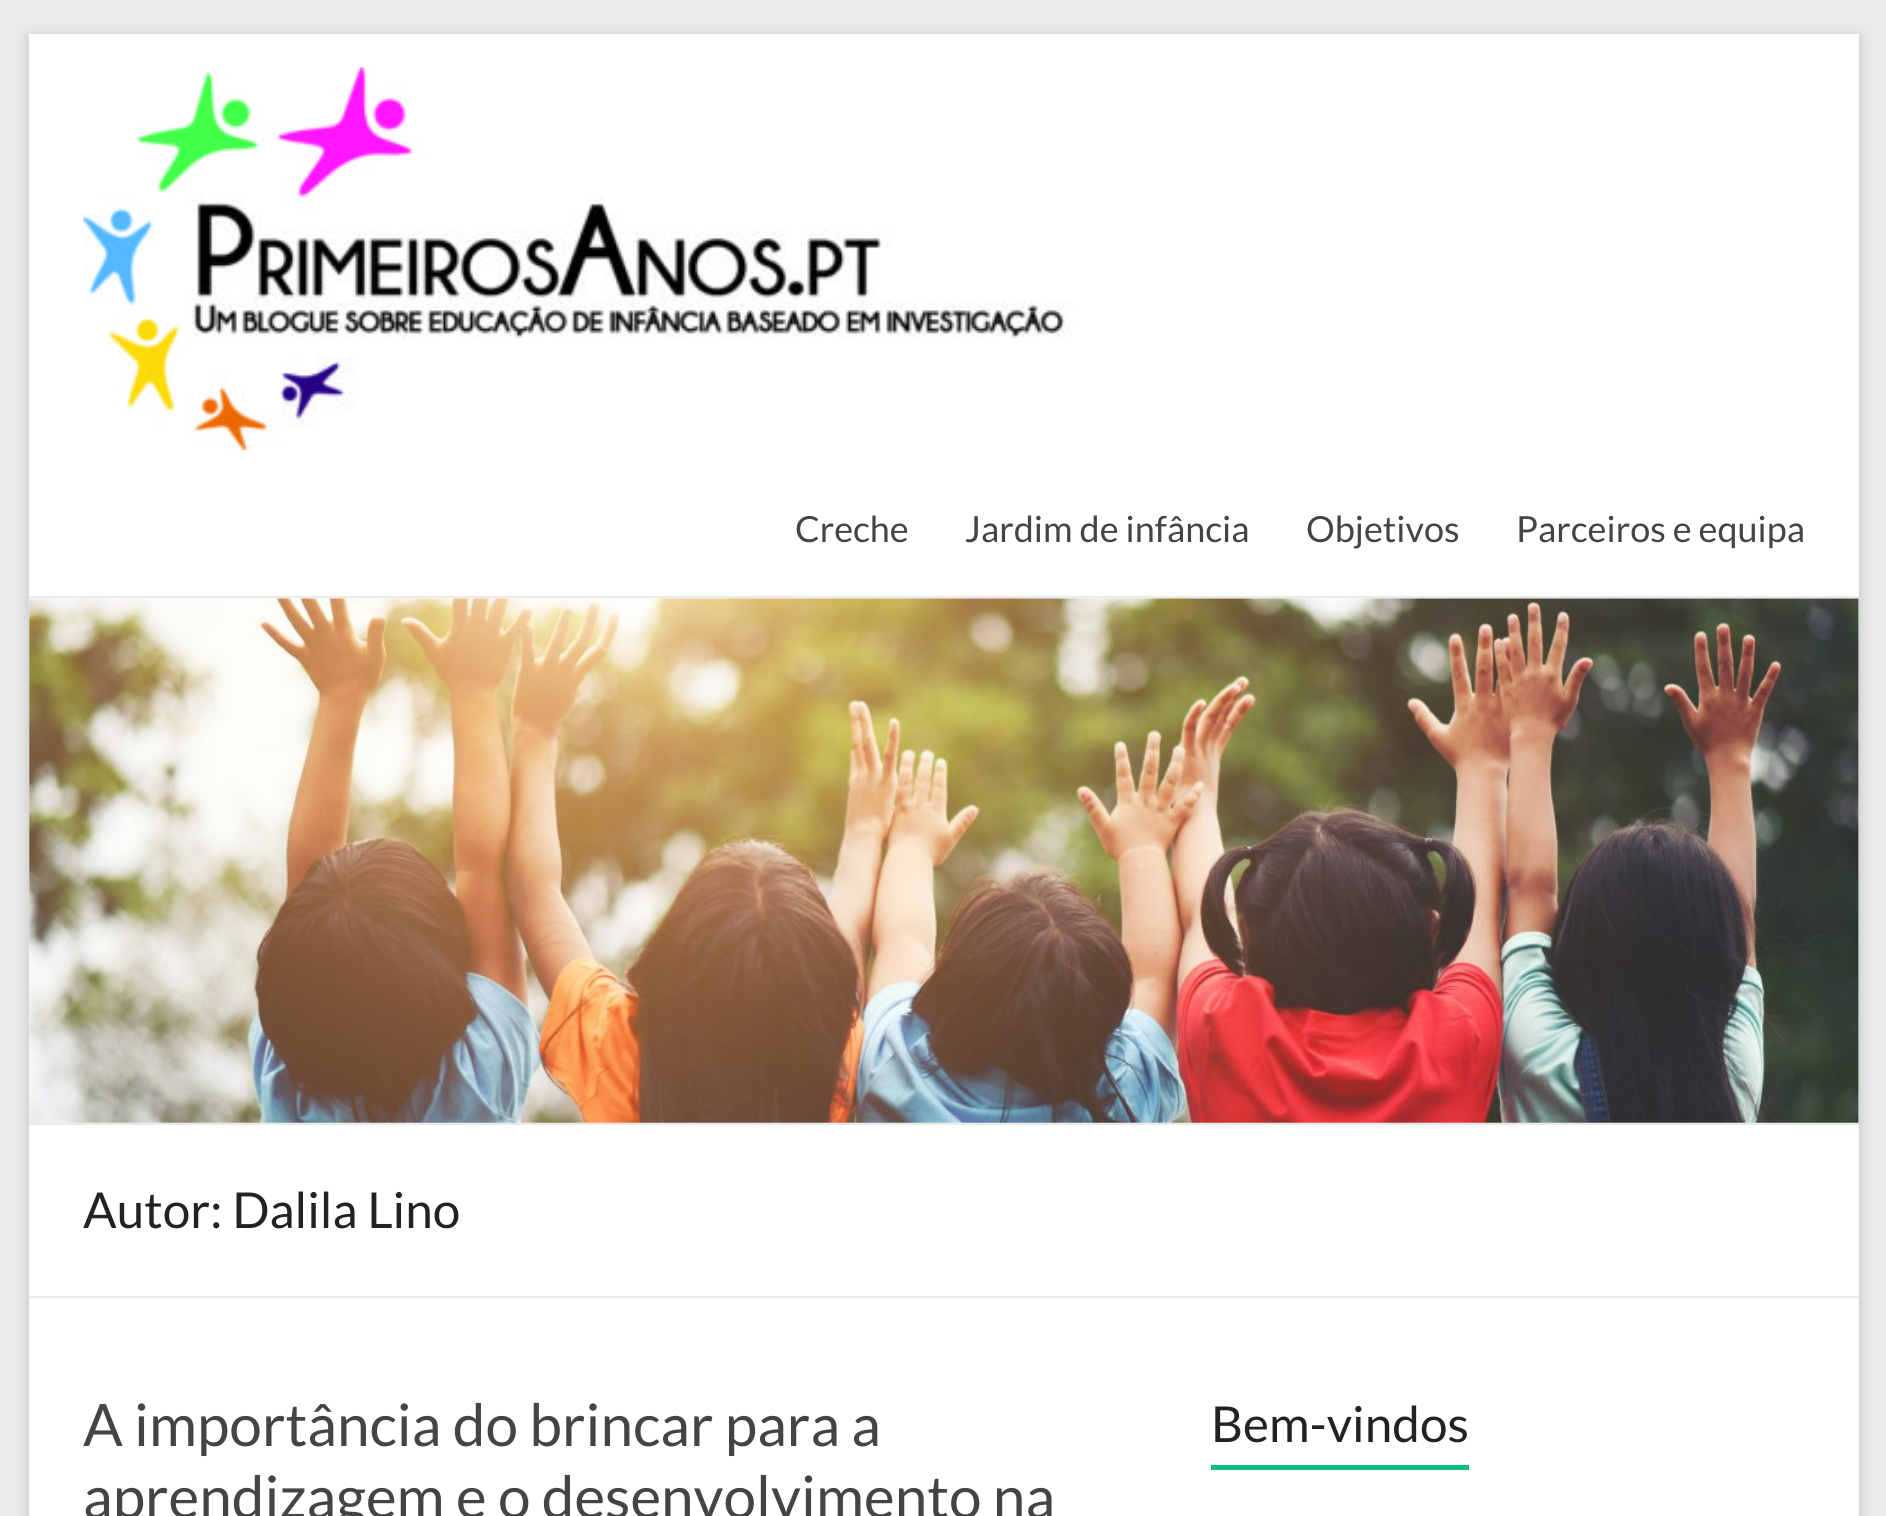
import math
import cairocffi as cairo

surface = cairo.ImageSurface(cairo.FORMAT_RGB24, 1886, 1516)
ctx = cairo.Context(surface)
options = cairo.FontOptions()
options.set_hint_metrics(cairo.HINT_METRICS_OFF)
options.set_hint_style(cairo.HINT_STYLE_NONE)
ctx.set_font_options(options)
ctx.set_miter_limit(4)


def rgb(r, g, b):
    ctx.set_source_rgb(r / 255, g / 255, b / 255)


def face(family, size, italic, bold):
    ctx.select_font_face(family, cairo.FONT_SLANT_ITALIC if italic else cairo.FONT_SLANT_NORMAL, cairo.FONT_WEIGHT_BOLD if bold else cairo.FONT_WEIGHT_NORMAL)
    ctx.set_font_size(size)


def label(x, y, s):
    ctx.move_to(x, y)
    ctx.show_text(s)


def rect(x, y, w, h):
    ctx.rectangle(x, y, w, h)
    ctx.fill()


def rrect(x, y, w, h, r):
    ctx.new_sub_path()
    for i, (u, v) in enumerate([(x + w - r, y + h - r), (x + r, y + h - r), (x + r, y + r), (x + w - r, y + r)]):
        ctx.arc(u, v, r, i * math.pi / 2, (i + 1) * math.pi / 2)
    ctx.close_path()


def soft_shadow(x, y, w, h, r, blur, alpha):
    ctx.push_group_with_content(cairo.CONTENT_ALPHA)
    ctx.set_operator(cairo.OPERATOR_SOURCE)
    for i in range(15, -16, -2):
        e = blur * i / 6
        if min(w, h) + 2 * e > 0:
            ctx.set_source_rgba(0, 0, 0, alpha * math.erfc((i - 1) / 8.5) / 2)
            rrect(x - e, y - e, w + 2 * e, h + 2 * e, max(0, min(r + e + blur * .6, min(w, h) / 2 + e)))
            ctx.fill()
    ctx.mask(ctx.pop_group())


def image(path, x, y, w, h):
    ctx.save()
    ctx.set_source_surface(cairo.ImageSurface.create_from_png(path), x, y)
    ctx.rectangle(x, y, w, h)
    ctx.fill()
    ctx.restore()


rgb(234, 234, 234)
ctx.paint()
rgb(100, 100, 100)
soft_shadow(29, 38, 1830, 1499, 0, 7, 0.3)
rgb(255, 255, 255)
rect(29, 34, 1830, 1482)
rgb(234, 234, 234)
rect(29, 596, 1830, 2)
image('image0.png', 83, 67, 990, 383)
face('Lato', 36, 0, 0)
rgb(68, 68, 68)
label(795, 542, 'Creche')
label(965, 542, 'Jardim de infância')
label(1306, 542, 'Objetivos')
label(1516, 542, 'Parceiros e equipa')
image('image1.png', 29, 598, 1830, 525)
rgb(234, 234, 234)
rect(29, 1123, 1830, 2)
rect(29, 1296, 1830, 2)
face('Lato', 49.5, 0, 0)
rgb(34, 34, 34)
label(83, 1228, 'Autor: Dalila Lino')
face('Lato', 58.5, 0, 0)
rgb(68, 68, 68)
label(83, 1446, 'A importância do brincar para a')
label(83, 1518, 'aprendizagem e o desenvolvimento na')
face('Lato', 49.5, 0, 0)
rgb(34, 34, 34)
label(1211, 1442, 'Bem-vindos')
rgb(15, 190, 124)
rect(1211, 1465, 258, 5)
surface.write_to_png('render.png')
